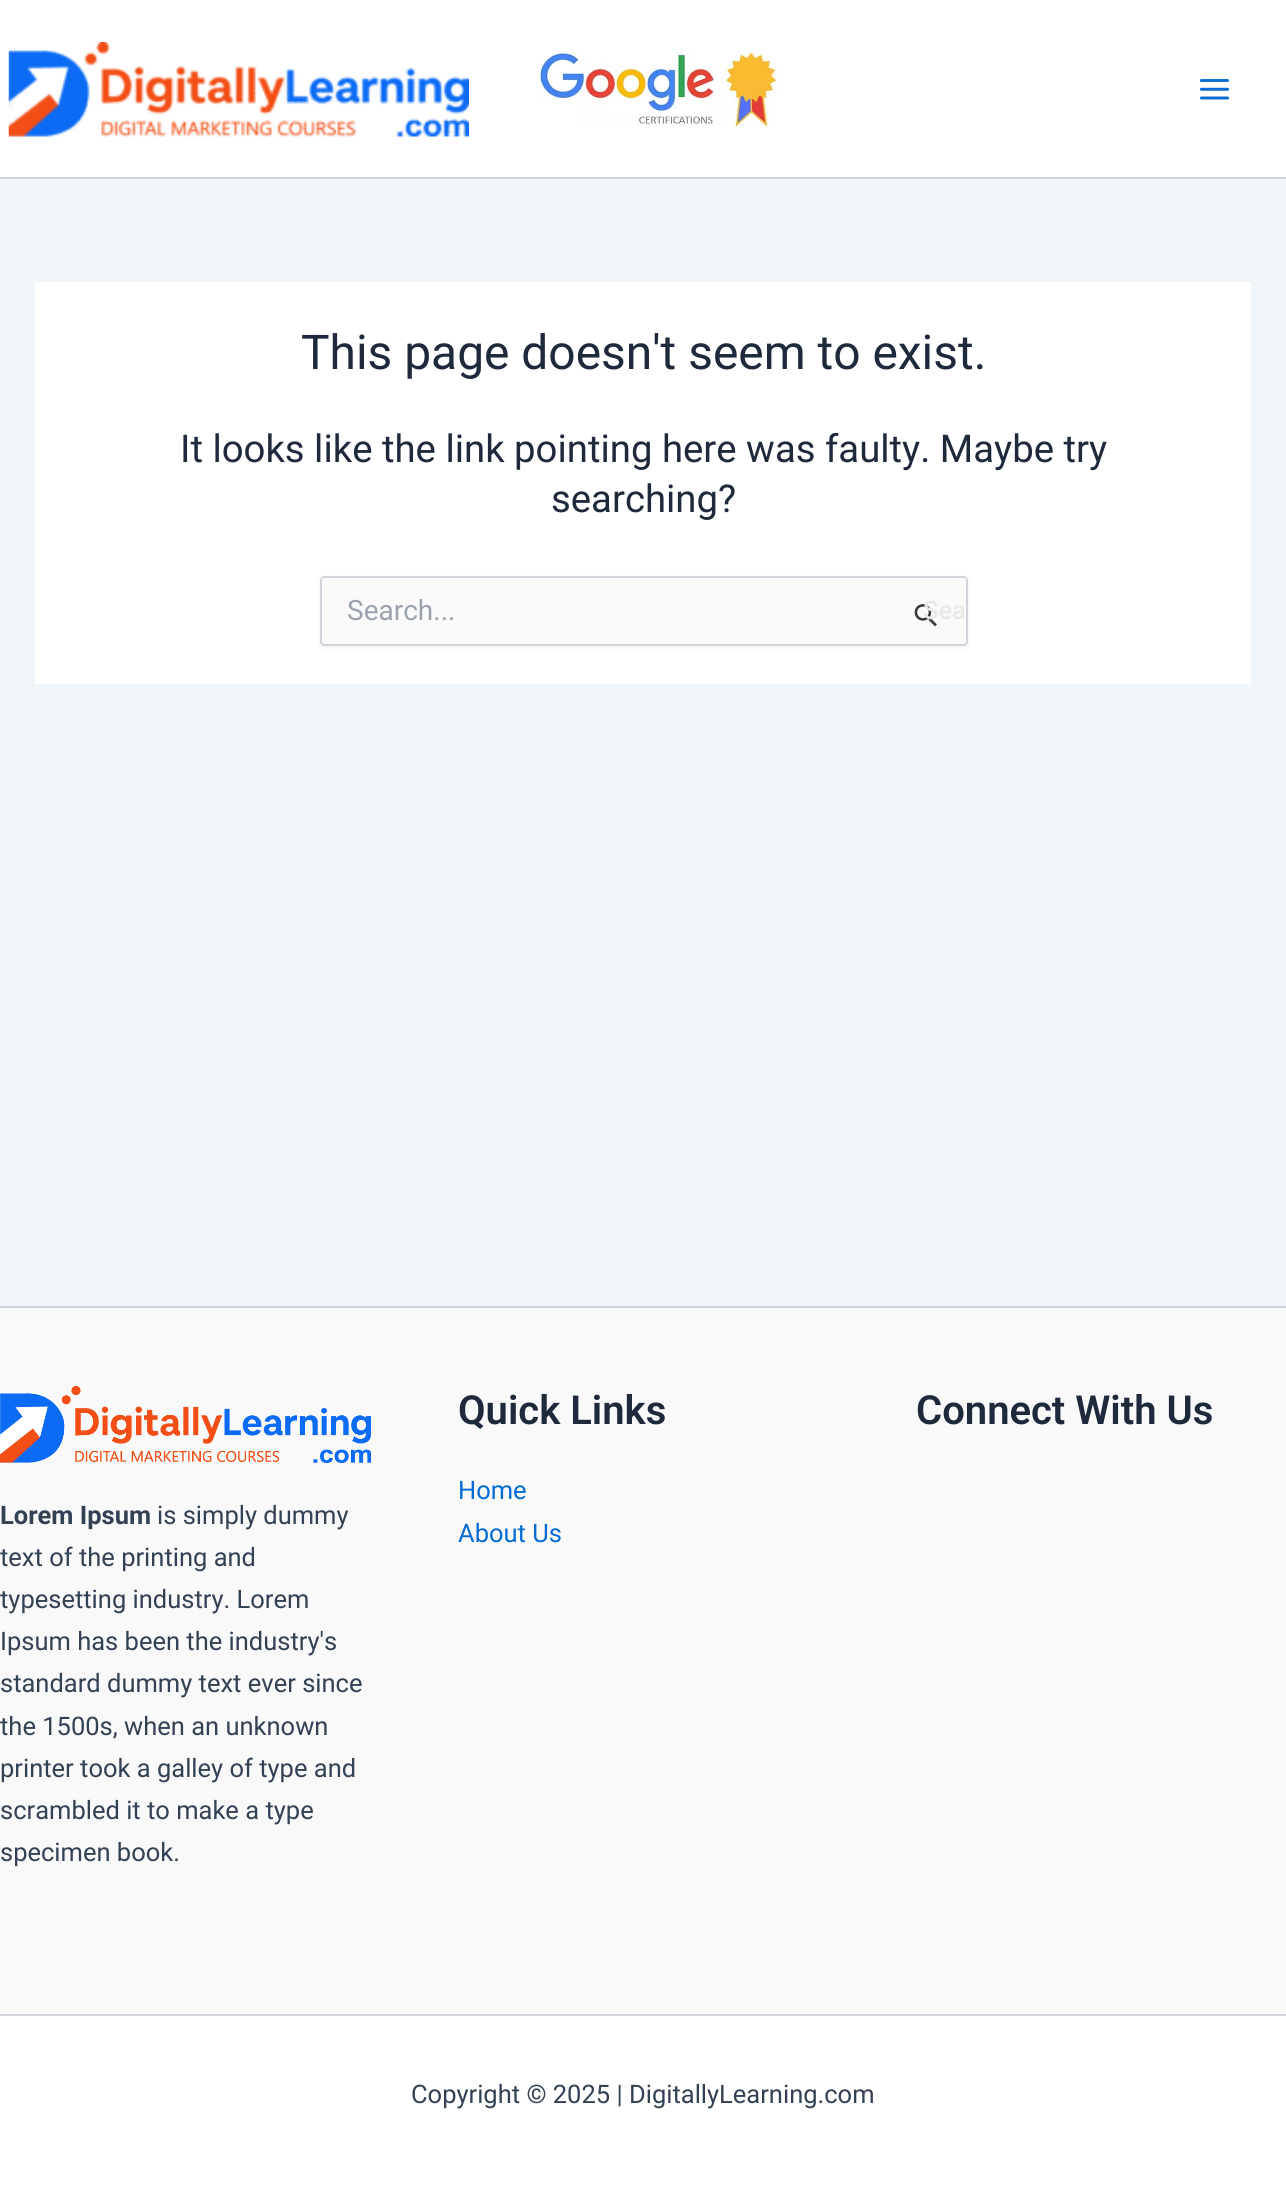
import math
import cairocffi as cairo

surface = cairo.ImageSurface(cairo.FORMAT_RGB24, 1286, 2191)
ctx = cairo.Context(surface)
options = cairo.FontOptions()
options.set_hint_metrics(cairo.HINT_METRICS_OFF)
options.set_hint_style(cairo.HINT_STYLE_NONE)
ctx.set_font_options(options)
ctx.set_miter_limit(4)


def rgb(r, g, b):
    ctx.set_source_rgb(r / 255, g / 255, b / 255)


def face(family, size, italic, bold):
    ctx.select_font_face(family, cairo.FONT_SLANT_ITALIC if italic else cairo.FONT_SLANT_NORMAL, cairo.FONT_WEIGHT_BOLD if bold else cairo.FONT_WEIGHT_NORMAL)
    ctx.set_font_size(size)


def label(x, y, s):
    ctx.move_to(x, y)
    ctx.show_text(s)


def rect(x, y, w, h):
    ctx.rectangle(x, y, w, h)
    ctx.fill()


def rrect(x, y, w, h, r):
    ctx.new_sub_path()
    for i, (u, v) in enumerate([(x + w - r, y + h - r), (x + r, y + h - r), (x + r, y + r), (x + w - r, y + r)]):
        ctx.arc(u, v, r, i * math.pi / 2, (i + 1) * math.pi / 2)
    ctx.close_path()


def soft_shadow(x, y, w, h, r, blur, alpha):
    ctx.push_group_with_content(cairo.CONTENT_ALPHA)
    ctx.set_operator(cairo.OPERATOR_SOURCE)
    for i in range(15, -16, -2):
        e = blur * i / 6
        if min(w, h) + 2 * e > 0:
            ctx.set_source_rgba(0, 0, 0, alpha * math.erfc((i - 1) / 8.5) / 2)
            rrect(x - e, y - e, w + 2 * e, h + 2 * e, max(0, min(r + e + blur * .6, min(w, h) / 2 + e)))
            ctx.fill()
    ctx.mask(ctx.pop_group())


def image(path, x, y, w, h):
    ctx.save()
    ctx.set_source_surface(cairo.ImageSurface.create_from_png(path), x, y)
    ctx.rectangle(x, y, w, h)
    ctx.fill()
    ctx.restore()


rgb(240, 245, 250)
ctx.paint()
rgb(255, 255, 255)
rect(0, 0, 1286, 177)
rgb(209, 213, 219)
rect(0, 177, 1286, 2)
image('image0.png', 8, 42, 461, 95)
image('image1.png', 537, 48, 241, 80)
image('image2.png', 1199, 79, 31, 21)
rgb(255, 255, 255)
rect(35, 282, 1216, 402)
face('Roboto', 47.9, 0, 0)
rgb(30, 41, 59)
label(301, 369, 'This page doesn\'t seem to exist.')
face('Roboto', 38.3, 0, 0)
label(180, 462, 'It looks like the link pointing here was faulty. Maybe try')
label(551, 512, 'searching?')
rgb(0, 0, 0)
soft_shadow(320, 578, 648, 70, 4, 2, 0.05)
rgb(250, 250, 250)
rrect(321, 577, 646, 68, 3)
ctx.fill_preserve()
rgb(209, 213, 219)
ctx.stroke()
face('Roboto', 28, 0, 0)
rgb(156, 163, 175)
label(347, 620, 'Search...')
image('image3.png', 914, 604, 23, 23)
face('Roboto Medium', 25.5, 0, 0)
rgb(232, 233, 233)
label(923, 619, 'Sea')
rgb(249, 249, 249)
rect(0, 1308, 1286, 706)
rgb(209, 213, 219)
rect(0, 1306, 1286, 2)
face('Roboto SemiBold', 40, 0, 0)
rgb(30, 41, 59)
label(458, 1424, 'Quick Links')
face('Roboto', 25.5, 0, 0)
rgb(4, 107, 210)
label(458, 1499, 'Home')
label(458, 1542, 'About Us')
face('Roboto SemiBold', 40, 0, 0)
rgb(30, 41, 59)
label(916, 1424, 'Connect With Us')
image('image4.png', 0, 1386, 371, 77)
face('Roboto', 25.5, 0, 1)
rgb(51, 65, 85)
label(0, 1524, 'Lorem Ipsum')
face('Roboto', 25.5, 0, 0)
label(157, 1524, 'is simply dummy')
label(0, 1566, 'text of the printing and')
label(0, 1608, 'typesetting industry. Lorem')
label(0, 1650, 'Ipsum has been the industry\'s')
label(0, 1692, 'standard dummy text ever since')
label(0, 1735, 'the 1500s, when an unknown')
label(0, 1777, 'printer took a galley of type and')
label(0, 1819, 'scrambled it to make a type')
label(0, 1861, 'specimen book.')
rgb(255, 255, 255)
rect(0, 2016, 1286, 175)
rgb(209, 213, 219)
rect(0, 2014, 1286, 2)
rgb(51, 65, 85)
label(411, 2103, 'Copyright © 2025 | DigitallyLearning.com')
surface.write_to_png('render.png')
